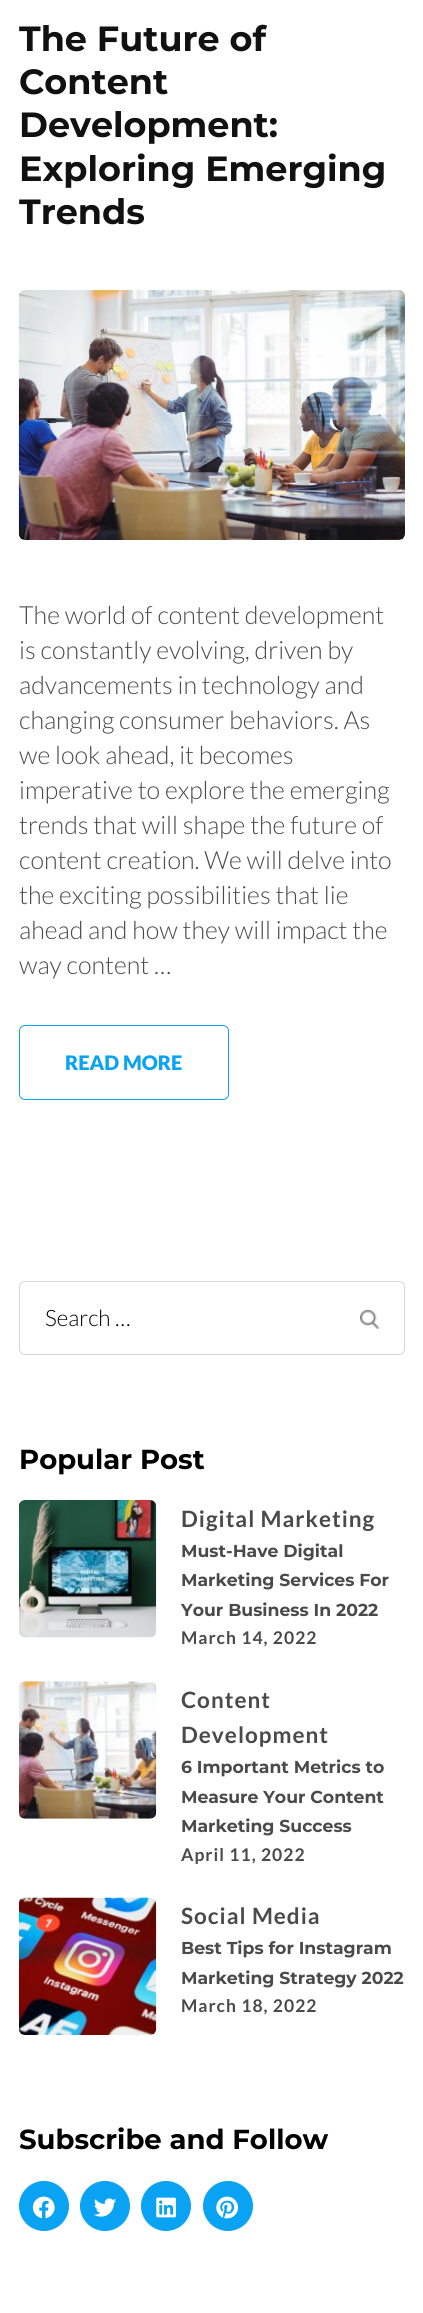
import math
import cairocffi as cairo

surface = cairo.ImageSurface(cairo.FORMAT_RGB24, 423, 2313)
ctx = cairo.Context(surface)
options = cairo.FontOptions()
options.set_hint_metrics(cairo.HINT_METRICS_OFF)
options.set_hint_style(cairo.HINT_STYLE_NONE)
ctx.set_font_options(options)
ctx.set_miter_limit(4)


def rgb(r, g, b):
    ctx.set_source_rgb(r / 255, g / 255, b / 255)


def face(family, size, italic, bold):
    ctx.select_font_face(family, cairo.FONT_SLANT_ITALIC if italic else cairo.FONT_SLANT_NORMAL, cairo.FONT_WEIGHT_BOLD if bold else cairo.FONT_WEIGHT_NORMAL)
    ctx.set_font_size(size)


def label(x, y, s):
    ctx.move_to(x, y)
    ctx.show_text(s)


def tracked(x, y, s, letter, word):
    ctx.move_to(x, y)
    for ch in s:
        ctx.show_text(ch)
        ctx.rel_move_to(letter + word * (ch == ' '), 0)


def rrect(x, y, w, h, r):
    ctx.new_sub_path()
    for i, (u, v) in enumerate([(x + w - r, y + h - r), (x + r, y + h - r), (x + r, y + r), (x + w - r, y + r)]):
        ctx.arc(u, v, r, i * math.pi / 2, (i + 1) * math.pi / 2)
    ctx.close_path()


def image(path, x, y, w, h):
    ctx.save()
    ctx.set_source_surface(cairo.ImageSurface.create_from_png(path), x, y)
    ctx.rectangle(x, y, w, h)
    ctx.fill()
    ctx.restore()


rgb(255, 255, 255)
ctx.paint()
face('Montserrat', 35, 0, 1)
rgb(17, 17, 17)
label(19, 51, 'The Future of')
label(19, 94, 'Content')
label(19, 137, 'Development:')
label(19, 181, 'Exploring Emerging')
label(19, 224, 'Trends')
image('image0.png', 18, 290, 387, 250)
face('Lato Light', 25, 0, 0)
rgb(74, 74, 74)
label(19, 624, 'The world of content development')
label(19, 659, 'is constantly evolving, driven by')
label(19, 694, 'advancements in technology and')
label(19, 729, 'changing consumer behaviors. As')
label(19, 764, 'we look ahead, it becomes')
label(19, 799, 'imperative to explore the emerging')
label(19, 834, 'trends that will shape the future of')
label(19, 869, 'content creation. We will delve into')
label(19, 904, 'the exciting possibilities that lie')
label(19, 939, 'ahead and how they will impact the')
label(19, 974, 'way content …')
rrect(19.5, 1025.5, 209, 74, 5.5)
rgb(10, 163, 243)
ctx.set_line_width(1)
ctx.stroke()
face('Lato Black', 20, 0, 0)
label(65, 1070, 'READ MORE')
rrect(19.5, 1281.5, 385, 73, 5.5)
rgb(216, 216, 216)
ctx.stroke()
face('Lato Light', 22.5, 0, 0)
rgb(0, 0, 0)
label(45, 1326, 'Search …')
image('image1.png', 360, 1310, 19, 19)
face('Montserrat', 27.5, 0, 1)
label(19, 1469, 'Popular Post')
image('image2.png', 19, 1500, 138, 138)
face('Lato', 22.5, 0, 1)
rgb(74, 74, 74)
tracked(181, 1527, 'Digital Marketing', 1, 0)
face('Montserrat', 17.25, 0, 1)
label(181, 1557, 'Must-Have Digital')
label(181, 1586, 'Marketing Services For')
label(181, 1616, 'Your Business In 2022')
face('Lato', 17.5, 0, 1)
tracked(181, 1644, 'March 14, 2022', 1, 0)
image('image3.png', 19, 1681, 138, 138)
face('Lato', 22.5, 0, 1)
tracked(181, 1708, 'Content', 1, 0)
tracked(181, 1743, 'Development', 1, 0)
face('Montserrat', 17.25, 0, 1)
label(181, 1773, '6 Important Metrics to')
label(181, 1803, 'Measure Your Content')
label(181, 1832, 'Marketing Success')
face('Lato', 17.5, 0, 1)
tracked(181, 1861, 'April 11, 2022', 1, 0)
image('image4.png', 19, 1897, 138, 138)
face('Lato', 22.5, 0, 1)
tracked(181, 1924, 'Social Media', 1, 0)
face('Montserrat', 17.25, 0, 1)
label(181, 1954, 'Best Tips for Instagram')
label(181, 1984, 'Marketing Strategy 2022')
face('Lato', 17.5, 0, 1)
tracked(181, 2012, 'March 18, 2022', 1, 0)
face('Montserrat', 27.5, 0, 1)
rgb(0, 0, 0)
label(19, 2149, 'Subscribe and Follow')
rgb(10, 163, 243)
ctx.new_path()
ctx.arc(44, 2206, 24.5, 0, 2 * math.pi)
ctx.fill_preserve()
ctx.stroke()
image('image5.png', 32, 2196, 23, 23)
ctx.arc(105, 2206, 24.5, 0, 2 * math.pi)
ctx.fill_preserve()
ctx.stroke()
image('image6.png', 94, 2198, 23, 19)
ctx.arc(166, 2206, 24.5, 0, 2 * math.pi)
ctx.fill_preserve()
ctx.stroke()
image('image7.png', 156, 2197, 20, 21)
ctx.arc(228, 2206, 24.5, 0, 2 * math.pi)
ctx.fill_preserve()
ctx.stroke()
image('image8.png', 216, 2196, 22, 23)
surface.write_to_png('render.png')
